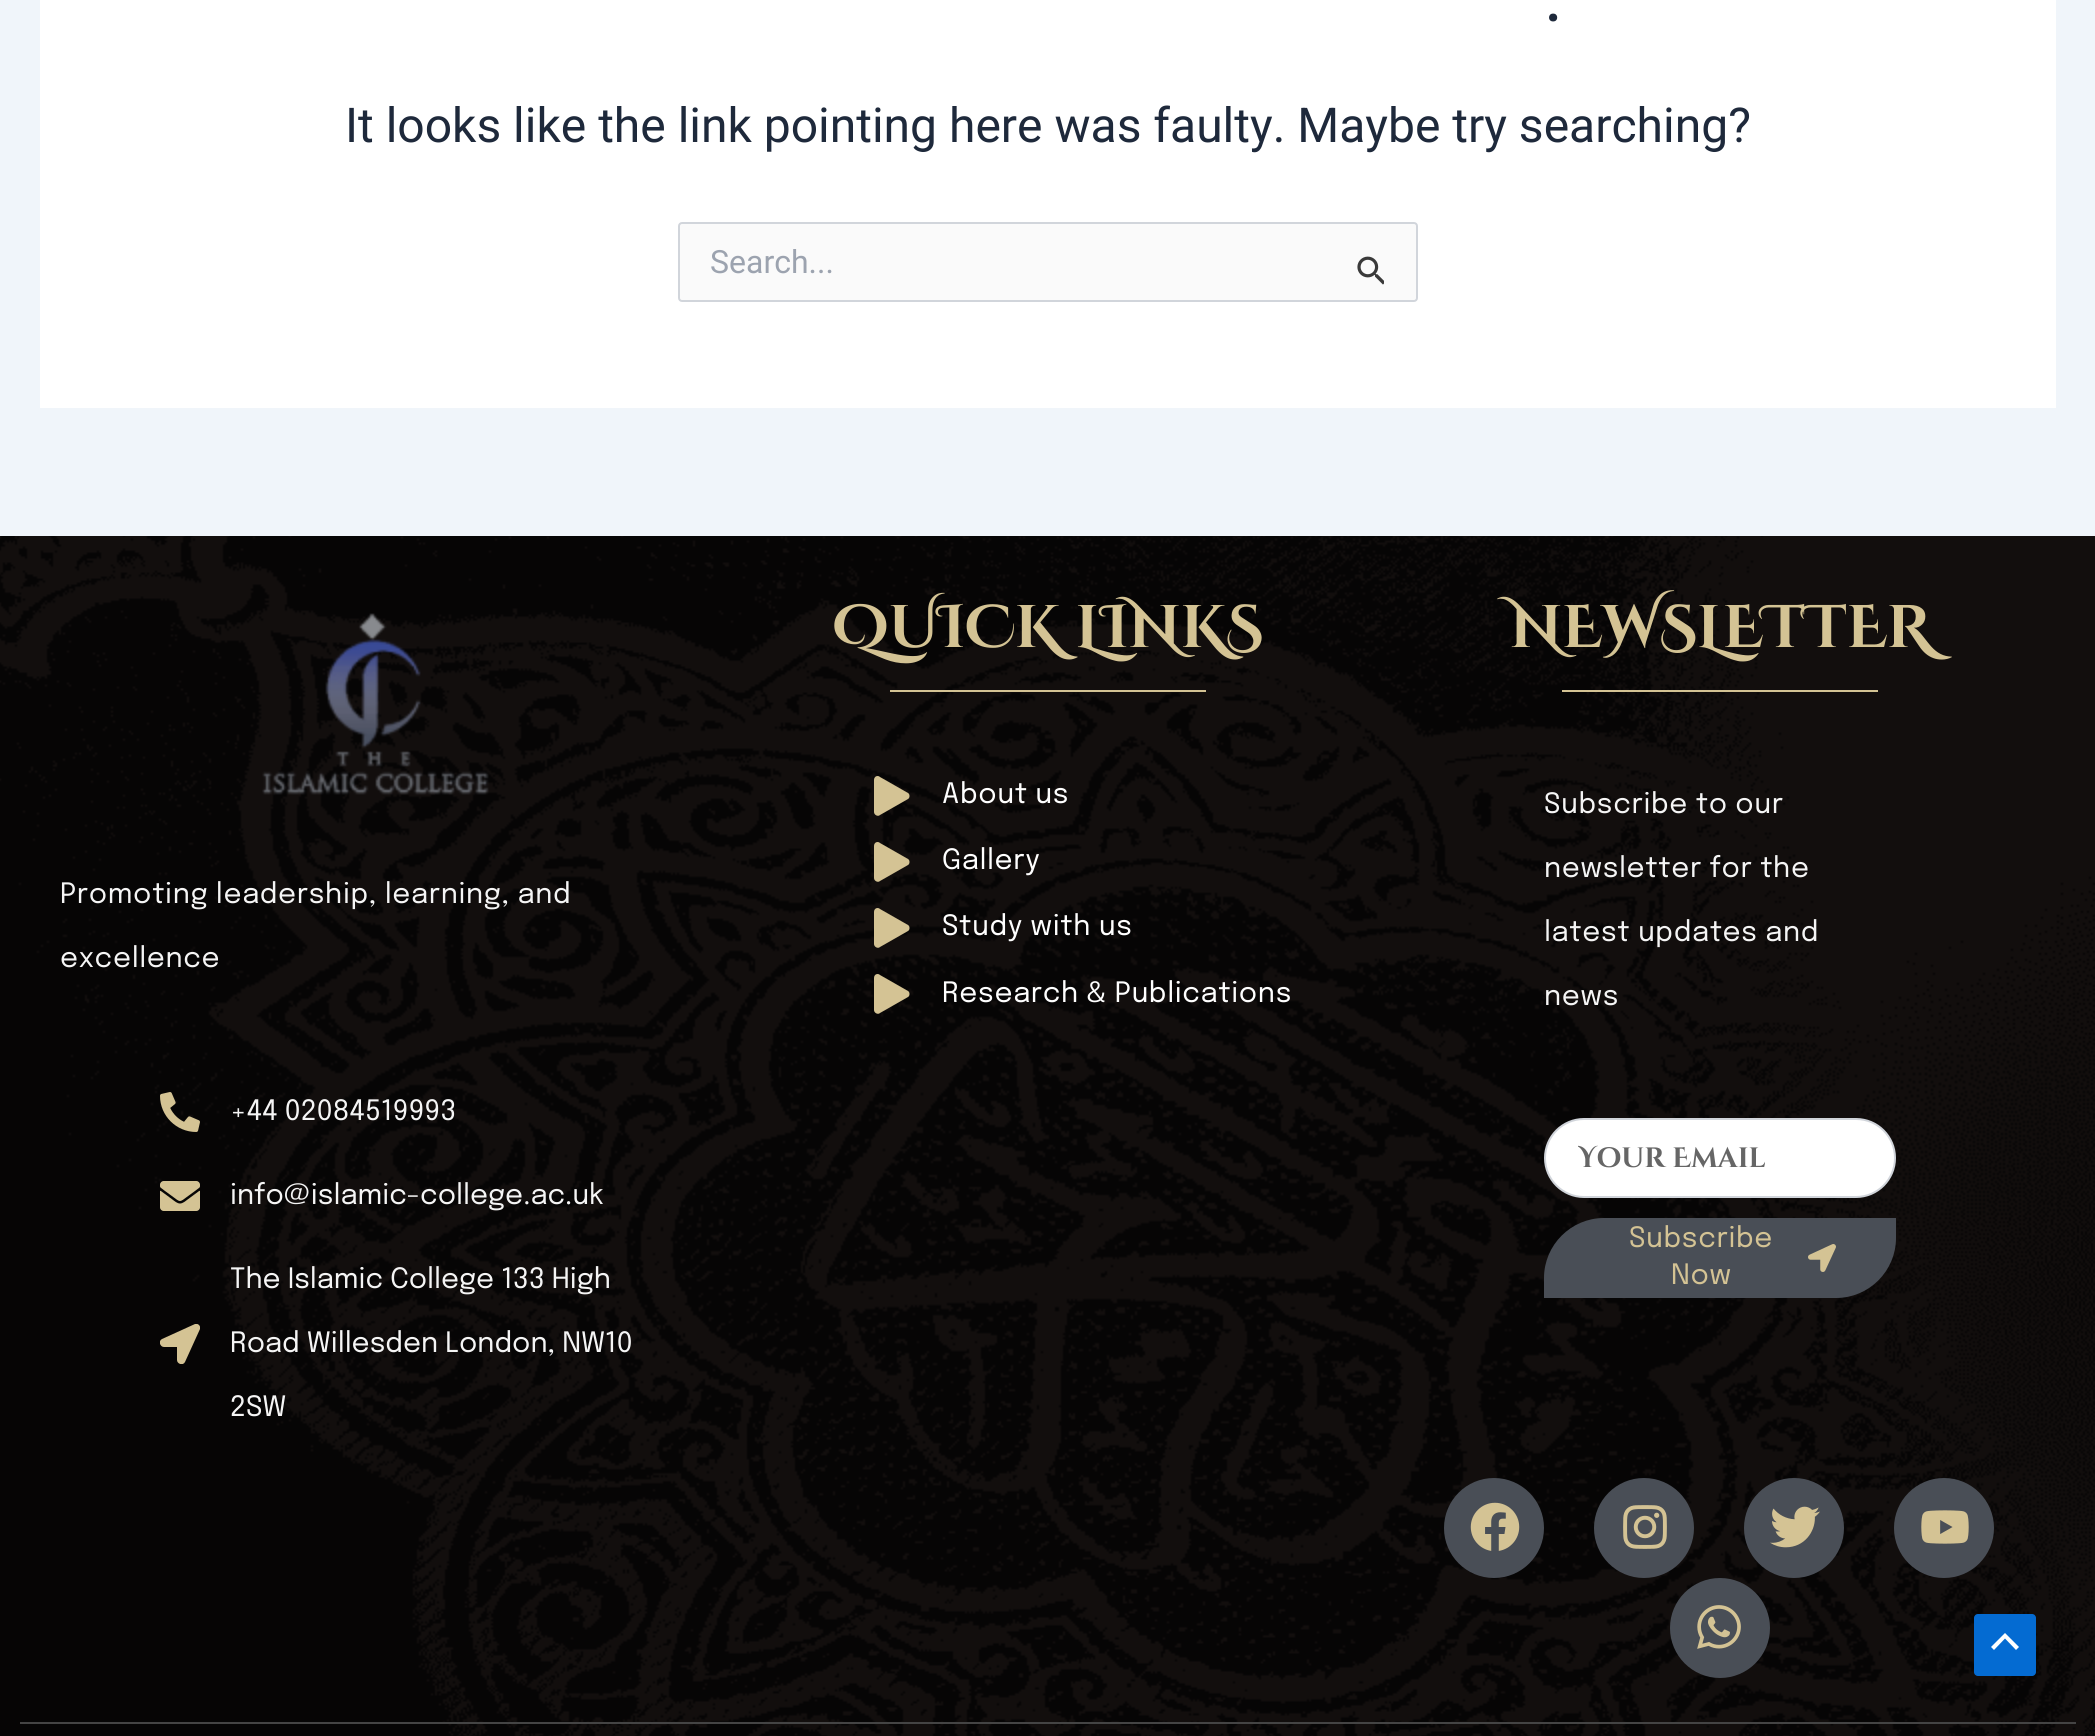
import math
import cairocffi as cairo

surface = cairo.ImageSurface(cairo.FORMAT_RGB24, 2095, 1736)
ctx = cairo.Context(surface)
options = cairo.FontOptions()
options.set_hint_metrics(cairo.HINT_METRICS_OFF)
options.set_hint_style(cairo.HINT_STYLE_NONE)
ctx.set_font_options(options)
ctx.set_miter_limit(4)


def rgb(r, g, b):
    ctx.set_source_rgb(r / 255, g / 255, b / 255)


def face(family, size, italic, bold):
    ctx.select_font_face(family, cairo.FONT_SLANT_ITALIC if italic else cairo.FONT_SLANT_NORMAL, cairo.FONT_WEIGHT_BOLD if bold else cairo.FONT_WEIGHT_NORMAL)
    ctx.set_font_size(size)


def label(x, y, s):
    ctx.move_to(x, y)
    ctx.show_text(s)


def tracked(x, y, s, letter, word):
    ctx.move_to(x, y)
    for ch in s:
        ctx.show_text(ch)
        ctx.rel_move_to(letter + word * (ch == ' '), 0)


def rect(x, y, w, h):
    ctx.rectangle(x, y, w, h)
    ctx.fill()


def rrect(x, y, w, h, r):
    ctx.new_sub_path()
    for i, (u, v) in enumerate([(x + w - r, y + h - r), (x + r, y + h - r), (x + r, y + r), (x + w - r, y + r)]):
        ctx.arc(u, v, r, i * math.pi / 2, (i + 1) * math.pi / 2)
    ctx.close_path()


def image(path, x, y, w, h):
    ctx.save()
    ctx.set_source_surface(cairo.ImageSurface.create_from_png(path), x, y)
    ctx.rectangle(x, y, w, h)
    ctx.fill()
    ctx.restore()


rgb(240, 245, 250)
ctx.paint()
rgb(255, 255, 255)
rect(40, 0, 2016, 408)
face('Roboto', 72, 0, 0)
rgb(30, 41, 59)
label(1544, 21, '.')
face('Roboto', 48, 0, 0)
label(345, 142, 'It looks like the link pointing here was faulty. Maybe try searching?')
rgb(250, 250, 250)
rrect(679, 223, 738, 78, 3)
ctx.fill_preserve()
rgb(209, 213, 219)
ctx.stroke()
face('Roboto', 32, 0, 0)
rgb(156, 163, 175)
label(710, 273, 'Search...')
image('image0.png', 1357, 256, 27, 29)
image('image1.png', 0, 536, 2095, 1200)
face('Cinzel Decorative', 60, 0, 1)
rgb(212, 195, 148)
label(833, 647, 'QUICK LINKS')
rect(890, 690, 316, 2)
ctx.new_path()
ctx.move_to(908, 793)
ctx.line_to(880, 777)
ctx.curve_to(878, 775, 874, 776, 874, 780)
ctx.line_to(874, 812)
ctx.curve_to(874, 815, 878, 817, 880, 815)
ctx.line_to(908, 799)
ctx.curve_to(910, 798, 910, 794, 908, 793)
ctx.close_path()
ctx.fill()
face('Epilogue', 28, 0, 0)
rgb(255, 255, 255)
tracked(942, 803, 'About us', 0.65, 0)
rgb(212, 195, 148)
ctx.new_path()
ctx.move_to(908, 859)
ctx.line_to(880, 843)
ctx.curve_to(878, 841, 874, 842, 874, 846)
ctx.line_to(874, 878)
ctx.curve_to(874, 881, 878, 883, 880, 881)
ctx.line_to(908, 865)
ctx.curve_to(910, 864, 910, 860, 908, 859)
ctx.close_path()
ctx.fill()
rgb(255, 255, 255)
tracked(942, 869, 'Gallery', 0.65, 0)
rgb(212, 195, 148)
ctx.new_path()
ctx.move_to(908, 925)
ctx.line_to(880, 909)
ctx.curve_to(878, 907, 874, 908, 874, 912)
ctx.line_to(874, 944)
ctx.curve_to(874, 947, 878, 949, 880, 947)
ctx.line_to(908, 931)
ctx.curve_to(910, 930, 910, 926, 908, 925)
ctx.close_path()
ctx.fill()
rgb(255, 255, 255)
tracked(942, 935, 'Study with us', 0.65, 0)
rgb(212, 195, 148)
ctx.new_path()
ctx.move_to(908, 991)
ctx.line_to(880, 975)
ctx.curve_to(878, 973, 874, 974, 874, 978)
ctx.line_to(874, 1010)
ctx.curve_to(874, 1013, 878, 1015, 880, 1013)
ctx.line_to(908, 997)
ctx.curve_to(910, 996, 910, 992, 908, 991)
ctx.close_path()
ctx.fill()
rgb(255, 255, 255)
tracked(942, 1002, 'Research & Publications', 0.65, 0)
face('Cinzel Decorative', 60, 0, 1)
rgb(212, 195, 148)
label(1510, 647, 'NEWSLETTER')
rect(1562, 690, 316, 2)
face('Epilogue', 28, 0, 0)
rgb(245, 245, 245)
tracked(1544, 813, 'Subscribe to our', 0.65, 0)
tracked(1544, 877, 'newsletter for the', 0.65, 0)
tracked(1544, 941, 'latest updates and', 0.65, 0)
tracked(1544, 1005, 'news', 0.65, 0)
rgb(255, 255, 255)
rrect(1545, 1119, 350, 78, 39)
ctx.fill_preserve()
rgb(209, 213, 219)
ctx.stroke()
ctx.save()
ctx.rectangle(1578, 1138, 284, 38)
ctx.clip()
face('Cinzel Decorative', 28, 0, 1)
rgb(102, 102, 102)
label(1578, 1167, 'Your Email')
ctx.restore()
rgb(73, 78, 86)
ctx.new_path()
ctx.move_to(1604, 1218)
ctx.line_to(1896, 1218)
ctx.line_to(1896, 1238)
ctx.curve_to(1896, 1271, 1869, 1298, 1836, 1298)
ctx.line_to(1544, 1298)
ctx.line_to(1544, 1278)
ctx.curve_to(1544, 1245, 1571, 1218, 1604, 1218)
ctx.close_path()
ctx.fill()
rgb(212, 195, 148)
tracked(1629, 1247, 'Subscribe', 0.65, 0)
tracked(1671, 1284, 'Now', 0.65, 0)
image('image2.png', 1808, 1244, 28, 28)
rgb(73, 78, 86)
ctx.arc(1494, 1528, 50, 0, 2 * math.pi)
ctx.fill()
image('image3.png', 1470, 1502, 50, 49)
ctx.arc(1644, 1528, 50, 0, 2 * math.pi)
ctx.fill()
image('image4.png', 1623, 1505, 44, 44)
ctx.arc(1794, 1528, 50, 0, 2 * math.pi)
ctx.fill()
image('image5.png', 1770, 1506, 50, 42)
ctx.arc(1944, 1528, 50, 0, 2 * math.pi)
ctx.fill()
image('image6.png', 1921, 1510, 48, 34)
ctx.arc(1720, 1628, 50, 0, 2 * math.pi)
ctx.fill()
image('image7.png', 1697, 1605, 44, 44)
image('image8.png', 262, 613, 227, 182)
rgb(245, 245, 245)
tracked(60, 903, 'Promoting leadership, learning, and', 0.65, 0)
tracked(60, 967, 'excellence', 0.65, 0)
image('image9.png', 160, 1092, 40, 40)
label(230, 1120, '+44 02084519993')
image('image10.png', 160, 1181, 40, 30)
label(230, 1204, 'info@islamic-college.ac.uk')
ctx.save()
ctx.rectangle(160, 1324, 40, 40)
ctx.clip()
rgb(212, 195, 148)
ctx.new_path()
ctx.move_to(195, 1324)
ctx.line_to(162, 1339)
ctx.curve_to(158, 1341, 160, 1347, 164, 1347)
ctx.line_to(177, 1347)
ctx.line_to(177, 1360)
ctx.curve_to(177, 1364, 183, 1366, 185, 1362)
ctx.line_to(200, 1329)
ctx.curve_to(201, 1326, 198, 1323, 195, 1324)
ctx.close_path()
ctx.fill()
ctx.restore()
label(230, 1288, 'The Islamic College 133 High')
label(230, 1352, 'Road Willesden London, NW10')
label(230, 1416, '2SW')
rgb(68, 68, 68)
rect(20, 1722, 2056, 2)
rgb(4, 107, 210)
rrect(1974, 1614, 62, 62, 4)
ctx.fill()
rgb(255, 255, 255)
ctx.new_path()
ctx.move_to(2019, 1647)
ctx.line_to(2005, 1633)
ctx.line_to(1991, 1647)
ctx.line_to(1994, 1650)
ctx.line_to(2005, 1638.5)
ctx.line_to(2016, 1650)
ctx.close_path()
ctx.fill()
surface.write_to_png('render.png')
